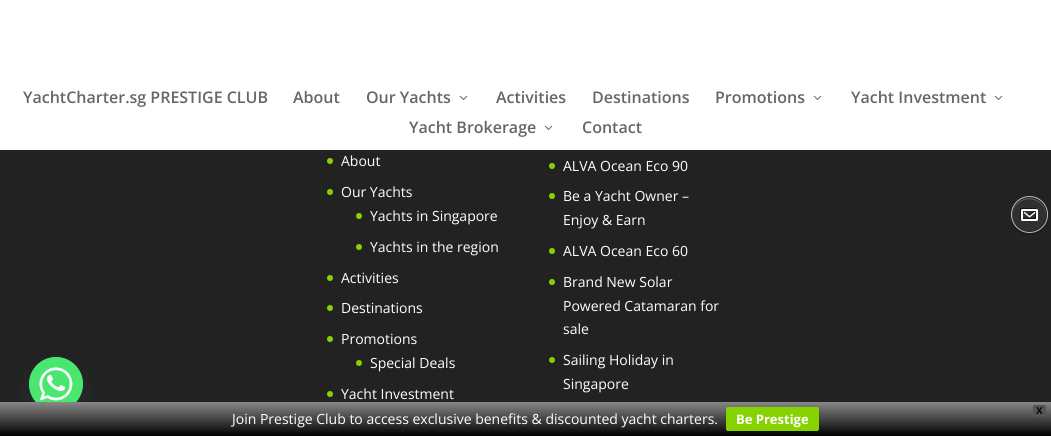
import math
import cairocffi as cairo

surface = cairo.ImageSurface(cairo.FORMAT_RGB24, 1051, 436)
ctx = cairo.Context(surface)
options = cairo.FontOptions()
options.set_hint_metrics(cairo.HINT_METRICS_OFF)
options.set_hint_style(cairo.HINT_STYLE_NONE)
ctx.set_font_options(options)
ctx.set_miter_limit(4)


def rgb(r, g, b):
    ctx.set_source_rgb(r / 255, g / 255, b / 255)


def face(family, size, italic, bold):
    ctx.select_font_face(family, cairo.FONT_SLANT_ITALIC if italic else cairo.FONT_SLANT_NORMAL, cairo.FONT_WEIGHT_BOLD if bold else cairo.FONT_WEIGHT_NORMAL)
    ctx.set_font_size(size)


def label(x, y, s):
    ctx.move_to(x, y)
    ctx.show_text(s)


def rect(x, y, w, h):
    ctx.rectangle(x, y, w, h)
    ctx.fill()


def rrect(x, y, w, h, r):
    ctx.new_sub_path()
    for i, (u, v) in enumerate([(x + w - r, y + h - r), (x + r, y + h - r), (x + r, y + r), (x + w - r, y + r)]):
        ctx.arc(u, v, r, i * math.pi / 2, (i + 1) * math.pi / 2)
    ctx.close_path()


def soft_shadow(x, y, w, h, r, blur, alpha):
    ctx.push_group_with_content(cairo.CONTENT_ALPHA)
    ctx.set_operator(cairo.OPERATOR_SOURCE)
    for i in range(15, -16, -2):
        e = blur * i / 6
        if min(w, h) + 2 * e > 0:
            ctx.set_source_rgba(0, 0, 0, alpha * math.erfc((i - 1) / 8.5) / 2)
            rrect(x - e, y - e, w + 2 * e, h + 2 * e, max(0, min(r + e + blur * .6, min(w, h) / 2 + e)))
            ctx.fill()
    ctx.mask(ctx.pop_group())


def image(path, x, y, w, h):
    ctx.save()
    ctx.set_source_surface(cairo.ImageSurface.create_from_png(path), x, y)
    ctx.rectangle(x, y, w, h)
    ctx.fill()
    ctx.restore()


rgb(34, 34, 34)
ctx.paint()
rgb(255, 255, 255)
rect(0, 0, 1051, 150)
face('Open Sans SemiBold', 16, 0, 0)
rgb(102, 102, 102)
label(23, 103, 'YachtCharter.sg PRESTIGE CLUB')
label(293, 103, 'About')
label(366, 103, 'Our Yachts')
image('image0.png', 459, 95, 9, 5)
label(496, 103, 'Activities')
label(592, 103, 'Destinations')
label(715, 103, 'Promotions')
image('image0.png', 813, 95, 9, 5)
label(851, 103, 'Yacht Investment')
image('image0.png', 994, 95, 9, 5)
label(409, 133, 'Yacht Brokerage')
image('image0.png', 544, 125, 9, 5)
label(582, 133, 'Contact')
rgb(135, 211, 0)
ctx.new_path()
ctx.arc(330, 161, 3, 0, 2 * math.pi)
ctx.fill()
face('Open Sans', 14, 0, 0)
rgb(255, 255, 255)
label(341, 166, 'About')
rgb(135, 211, 0)
ctx.new_path()
ctx.arc(330, 192, 3, 0, 2 * math.pi)
ctx.fill()
rgb(255, 255, 255)
label(341, 197, 'Our Yachts')
rgb(135, 211, 0)
ctx.new_path()
ctx.arc(359, 216, 3, 0, 2 * math.pi)
ctx.fill()
rgb(255, 255, 255)
label(370, 221, 'Yachts in Singapore')
rgb(135, 211, 0)
ctx.new_path()
ctx.arc(359, 247, 3, 0, 2 * math.pi)
ctx.fill()
rgb(255, 255, 255)
label(370, 252, 'Yachts in the region')
rgb(135, 211, 0)
ctx.new_path()
ctx.arc(330, 278, 3, 0, 2 * math.pi)
ctx.fill()
rgb(255, 255, 255)
label(341, 283, 'Activities')
rgb(135, 211, 0)
ctx.new_path()
ctx.arc(330, 308, 3, 0, 2 * math.pi)
ctx.fill()
rgb(255, 255, 255)
label(341, 313, 'Destinations')
rgb(135, 211, 0)
ctx.new_path()
ctx.arc(330, 339, 3, 0, 2 * math.pi)
ctx.fill()
rgb(255, 255, 255)
label(341, 344, 'Promotions')
rgb(135, 211, 0)
ctx.new_path()
ctx.arc(359, 363, 3, 0, 2 * math.pi)
ctx.fill()
rgb(255, 255, 255)
label(370, 368, 'Special Deals')
rgb(135, 211, 0)
ctx.new_path()
ctx.arc(330, 394, 3, 0, 2 * math.pi)
ctx.fill()
rgb(255, 255, 255)
label(341, 399, 'Yacht Investment')
rgb(135, 211, 0)
ctx.new_path()
ctx.arc(552, 166, 3, 0, 2 * math.pi)
ctx.fill()
rgb(255, 255, 255)
label(563, 171, 'ALVA Ocean Eco 90')
rgb(135, 211, 0)
ctx.new_path()
ctx.arc(552, 196, 3, 0, 2 * math.pi)
ctx.fill()
rgb(255, 255, 255)
label(563, 201, 'Be a Yacht Owner –')
label(563, 225, 'Enjoy & Earn')
rgb(135, 211, 0)
ctx.new_path()
ctx.arc(552, 251, 3, 0, 2 * math.pi)
ctx.fill()
rgb(255, 255, 255)
label(563, 256, 'ALVA Ocean Eco 60')
rgb(135, 211, 0)
ctx.new_path()
ctx.arc(552, 282, 3, 0, 2 * math.pi)
ctx.fill()
rgb(255, 255, 255)
label(563, 287, 'Brand New Solar')
label(563, 311, 'Powered Catamaran for')
label(563, 334, 'sale')
rgb(135, 211, 0)
ctx.new_path()
ctx.arc(552, 360, 3, 0, 2 * math.pi)
ctx.fill()
rgb(255, 255, 255)
label(563, 365, 'Sailing Holiday in')
label(563, 389, 'Singapore')
image('image1.png', 1011, 196, 37, 39)
rgb(73, 104, 126)
soft_shadow(29, 373, 54, 54, 27, 12, 0.16)
rgb(73, 230, 112)
ctx.arc(56, 384, 27, 0, 2 * math.pi)
ctx.fill()
image('image2.png', 29, 357, 54, 45)
gradient = cairo.LinearGradient(526, 402, 526, 436)
gradient.add_color_stop_rgba(0, 0.533, 0.533, 0.533, 1)
gradient.add_color_stop_rgba(1, 0, 0, 0, 1)
ctx.set_source(gradient)
rect(0, 402, 1051, 34)
rgb(85, 85, 85)
rrect(1033.5, 405.5, 12, 11, 1.5)
ctx.fill_preserve()
ctx.set_line_width(1)
ctx.stroke()
face('Liberation Sans', 10, 0, 1)
rgb(0, 0, 0)
label(1036, 414, 'X')
face('Open Sans', 14, 0, 0)
rgb(255, 255, 255)
label(232, 424, 'Join Prestige Club to access exclusive benefits & discounted yacht charters.')
rgb(0, 0, 0)
soft_shadow(726, 408, 93, 24, 2, 1, 0.2)
rgb(134, 211, 0)
rrect(726, 407, 93, 24, 2)
ctx.fill()
face('Open Sans', 13, 0, 1)
rgb(255, 255, 255)
label(736, 424, 'Be Prestige')
surface.write_to_png('render.png')
